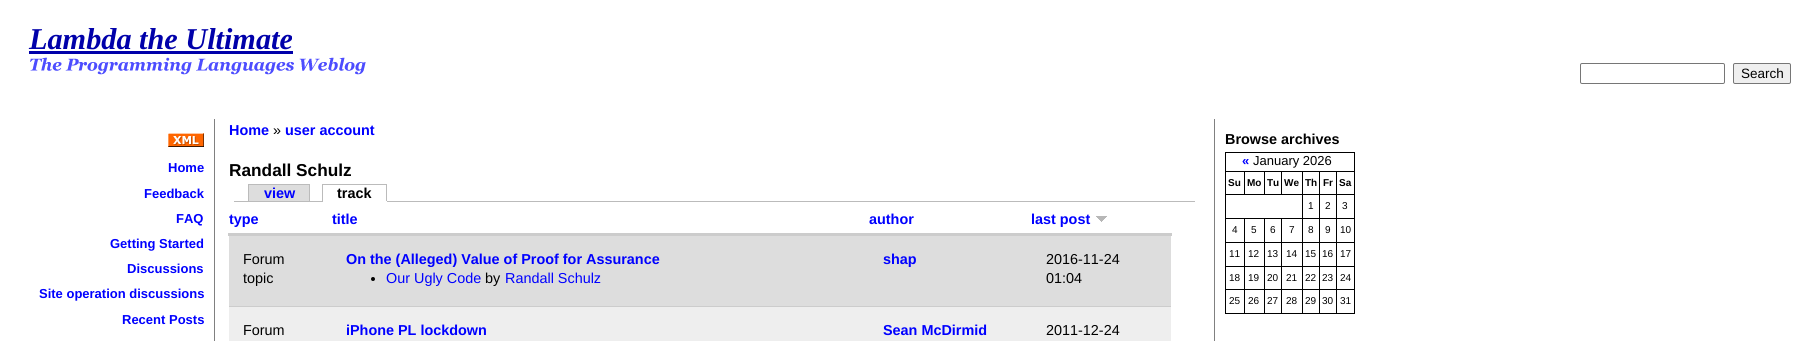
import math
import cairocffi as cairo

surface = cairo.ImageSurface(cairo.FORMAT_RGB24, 1795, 341)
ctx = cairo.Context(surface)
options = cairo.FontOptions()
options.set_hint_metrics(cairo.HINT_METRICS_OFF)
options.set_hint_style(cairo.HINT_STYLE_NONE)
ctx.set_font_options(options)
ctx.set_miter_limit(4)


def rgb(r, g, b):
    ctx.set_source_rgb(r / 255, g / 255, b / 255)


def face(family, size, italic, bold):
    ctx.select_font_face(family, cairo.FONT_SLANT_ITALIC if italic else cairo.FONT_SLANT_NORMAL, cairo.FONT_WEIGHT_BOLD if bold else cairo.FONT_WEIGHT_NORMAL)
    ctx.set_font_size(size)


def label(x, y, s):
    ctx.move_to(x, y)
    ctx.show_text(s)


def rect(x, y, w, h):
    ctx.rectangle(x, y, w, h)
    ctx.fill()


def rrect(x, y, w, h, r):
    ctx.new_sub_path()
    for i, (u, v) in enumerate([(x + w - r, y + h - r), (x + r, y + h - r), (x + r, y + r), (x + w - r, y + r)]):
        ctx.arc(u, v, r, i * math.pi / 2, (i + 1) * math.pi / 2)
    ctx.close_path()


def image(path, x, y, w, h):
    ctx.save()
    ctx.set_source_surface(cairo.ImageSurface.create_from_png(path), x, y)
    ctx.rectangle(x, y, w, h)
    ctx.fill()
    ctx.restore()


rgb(255, 255, 255)
ctx.paint()
face('Liberation Serif', 30.25, 1, 1)
rgb(0, 0, 170)
label(29, 49, 'Lambda the Ultimate')
rect(29, 51, 264, 3)
image('image0.png', 30, 57, 336, 18)
rrect(1580.5, 63.5, 144, 20, 1.5)
rgb(118, 118, 118)
ctx.set_line_width(1)
ctx.stroke()
rgb(239, 239, 239)
rrect(1733.5, 63.5, 57, 20, 1.5)
ctx.fill_preserve()
rgb(118, 118, 118)
ctx.stroke()
face('Liberation Sans', 13.5, 0, 0)
rgb(0, 0, 0)
label(1741, 78, 'Search')
rgb(128, 128, 128)
rect(214, 119, 1, 222)
image('image1.png', 168, 133, 36, 14)
face('Liberation Sans', 13, 0, 1)
rgb(0, 0, 255)
label(168, 172, 'Home')
label(144, 198, 'Feedback')
label(176, 223, 'FAQ')
label(110, 248, 'Getting Started')
label(127, 273, 'Discussions')
label(39, 298, 'Site operation discussions')
label(122, 324, 'Recent Posts')
face('Liberation Sans', 14.4, 0, 1)
label(229, 135, 'Home')
face('Liberation Sans', 14.4, 0, 0)
rgb(0, 0, 0)
label(273, 135, '»')
face('Liberation Sans', 14.4, 0, 1)
rgb(0, 0, 255)
label(285, 135, 'user account')
face('Liberation Sans', 17.25, 0, 1)
rgb(0, 0, 0)
label(229, 176, 'Randall Schulz')
rgb(187, 187, 187)
rect(234, 201, 961, 1)
rgb(221, 221, 221)
rect(249, 185, 60, 16)
face('Liberation Sans', 14.4, 0, 1)
rgb(0, 0, 255)
label(264, 198, 'view')
rgb(187, 187, 187)
rect(248, 184, 62, 1)
rect(309, 184, 1, 17)
rect(248, 184, 1, 17)
rgb(0, 0, 0)
label(337, 198, 'track')
rgb(187, 187, 187)
rect(322, 184, 65, 1)
rect(386, 184, 1, 18)
rgb(255, 255, 255)
rect(322, 201, 65, 1)
rgb(187, 187, 187)
rect(322, 184, 1, 18)
rgb(0, 0, 255)
label(229, 224, 'type')
label(332, 224, 'title')
label(869, 224, 'author')
rgb(204, 204, 204)
rect(228, 233, 944, 3)
rgb(0, 0, 255)
label(1031, 224, 'last post')
image('image2.png', 1096, 216, 11, 6)
rgb(221, 221, 221)
rect(229, 236, 942, 70)
rgb(204, 204, 204)
rect(229, 306, 942, 1)
face('Liberation Sans', 14.4, 0, 0)
rgb(0, 0, 0)
label(243, 264, 'Forum')
label(243, 283, 'topic')
face('Liberation Sans', 14.4, 0, 1)
rgb(0, 0, 255)
label(346, 264, 'On the (Alleged) Value of Proof for Assurance')
rgb(0, 0, 0)
ctx.new_path()
ctx.arc(373, 279, 2, 0, 2 * math.pi)
ctx.fill()
face('Liberation Sans', 14.4, 0, 0)
rgb(0, 0, 255)
label(386, 283, 'Our Ugly Code')
rgb(0, 0, 0)
label(485, 283, 'by')
rgb(0, 0, 255)
label(505, 283, 'Randall Schulz')
face('Liberation Sans', 14.4, 0, 1)
label(883, 264, 'shap')
face('Liberation Sans', 14.4, 0, 0)
rgb(0, 0, 0)
label(1046, 264, '2016-11-24')
label(1046, 283, '01:04')
rgb(238, 238, 238)
rect(229, 307, 942, 34)
rgb(0, 0, 0)
label(243, 335, 'Forum')
face('Liberation Sans', 14.4, 0, 1)
rgb(0, 0, 255)
label(346, 335, 'iPhone PL lockdown')
label(883, 335, 'Sean McDirmid')
face('Liberation Sans', 14.4, 0, 0)
rgb(0, 0, 0)
label(1046, 335, '2011-12-24')
rgb(128, 128, 128)
rect(1214, 119, 1, 222)
face('Liberation Sans', 14.4, 0, 1)
rgb(0, 0, 0)
label(1225, 144, 'Browse archives')
rect(1225, 152, 130, 1)
rect(1354, 152, 1, 162)
rect(1225, 313, 130, 1)
rect(1225, 152, 1, 162)
face('Liberation Sans', 13, 0, 1)
rgb(0, 0, 255)
label(1242, 165, '«')
face('Liberation Sans', 13, 0, 0)
rgb(0, 0, 0)
label(1253, 165, 'January 2026')
rect(1336, 171, 19, 1)
rect(1336, 194, 19, 1)
rect(1336, 218, 19, 1)
rect(1336, 242, 19, 1)
rect(1336, 266, 19, 1)
rect(1336, 289, 19, 1)
rect(1336, 289, 1, 25)
rect(1319, 289, 18, 1)
rect(1336, 266, 1, 24)
rect(1319, 266, 18, 1)
rect(1336, 242, 1, 25)
rect(1319, 242, 18, 1)
rect(1336, 218, 1, 25)
rect(1319, 218, 18, 1)
rect(1336, 194, 1, 25)
rect(1319, 194, 18, 1)
rect(1336, 171, 1, 24)
rect(1319, 171, 18, 1)
rect(1319, 289, 1, 25)
rect(1302, 289, 18, 1)
rect(1319, 266, 1, 24)
rect(1302, 266, 18, 1)
rect(1319, 242, 1, 25)
rect(1302, 242, 18, 1)
rect(1319, 218, 1, 25)
rect(1302, 218, 18, 1)
rect(1319, 194, 1, 25)
rect(1302, 194, 18, 1)
rect(1319, 171, 1, 24)
rect(1302, 171, 18, 1)
rect(1302, 289, 1, 25)
rect(1281, 289, 22, 1)
rect(1302, 266, 1, 24)
rect(1281, 266, 22, 1)
rect(1302, 242, 1, 25)
rect(1281, 242, 22, 1)
rect(1302, 218, 1, 25)
rect(1281, 218, 22, 1)
rect(1302, 194, 1, 25)
rect(1302, 171, 1, 24)
rect(1281, 171, 22, 1)
rect(1281, 194, 22, 1)
rect(1281, 171, 1, 24)
rect(1264, 171, 18, 1)
rect(1264, 194, 18, 1)
rect(1264, 171, 1, 24)
rect(1244, 171, 21, 1)
rect(1244, 194, 21, 1)
rect(1244, 171, 1, 24)
rect(1225, 171, 20, 1)
rect(1225, 194, 20, 1)
face('Liberation Sans', 10, 0, 1)
label(1228, 186, 'Su')
label(1247, 186, 'Mo')
label(1267, 186, 'Tu')
label(1284, 186, 'We')
label(1305, 186, 'Th')
label(1323, 186, 'Fr')
label(1339, 186, 'Sa')
face('Liberation Sans', 10, 0, 0)
label(1308, 209, '1')
label(1325, 209, '2')
label(1342, 209, '3')
rect(1281, 289, 1, 25)
rect(1264, 289, 18, 1)
rect(1281, 266, 1, 24)
rect(1264, 266, 18, 1)
rect(1281, 242, 1, 25)
rect(1264, 242, 18, 1)
rect(1281, 218, 1, 25)
rect(1264, 218, 18, 1)
rect(1264, 289, 1, 25)
rect(1244, 289, 21, 1)
rect(1264, 266, 1, 24)
rect(1244, 266, 21, 1)
rect(1264, 242, 1, 25)
rect(1244, 242, 21, 1)
rect(1264, 218, 1, 25)
rect(1244, 218, 21, 1)
rect(1244, 289, 1, 25)
rect(1225, 289, 20, 1)
rect(1244, 266, 1, 24)
rect(1225, 266, 20, 1)
rect(1244, 242, 1, 25)
rect(1225, 242, 20, 1)
rect(1244, 218, 1, 25)
rect(1225, 218, 20, 1)
label(1232, 233, '4')
label(1251, 233, '5')
label(1270, 233, '6')
label(1289, 233, '7')
label(1308, 233, '8')
label(1325, 233, '9')
label(1340, 233, '10')
label(1229, 257, '11')
label(1248, 257, '12')
label(1267, 257, '13')
label(1286, 257, '14')
label(1305, 257, '15')
label(1322, 257, '16')
label(1340, 257, '17')
label(1229, 281, '18')
label(1248, 281, '19')
label(1267, 281, '20')
label(1286, 281, '21')
label(1305, 281, '22')
label(1322, 281, '23')
label(1340, 281, '24')
label(1229, 304, '25')
label(1248, 304, '26')
label(1267, 304, '27')
label(1286, 304, '28')
label(1305, 304, '29')
label(1322, 304, '30')
label(1340, 304, '31')
surface.write_to_png('render.png')
